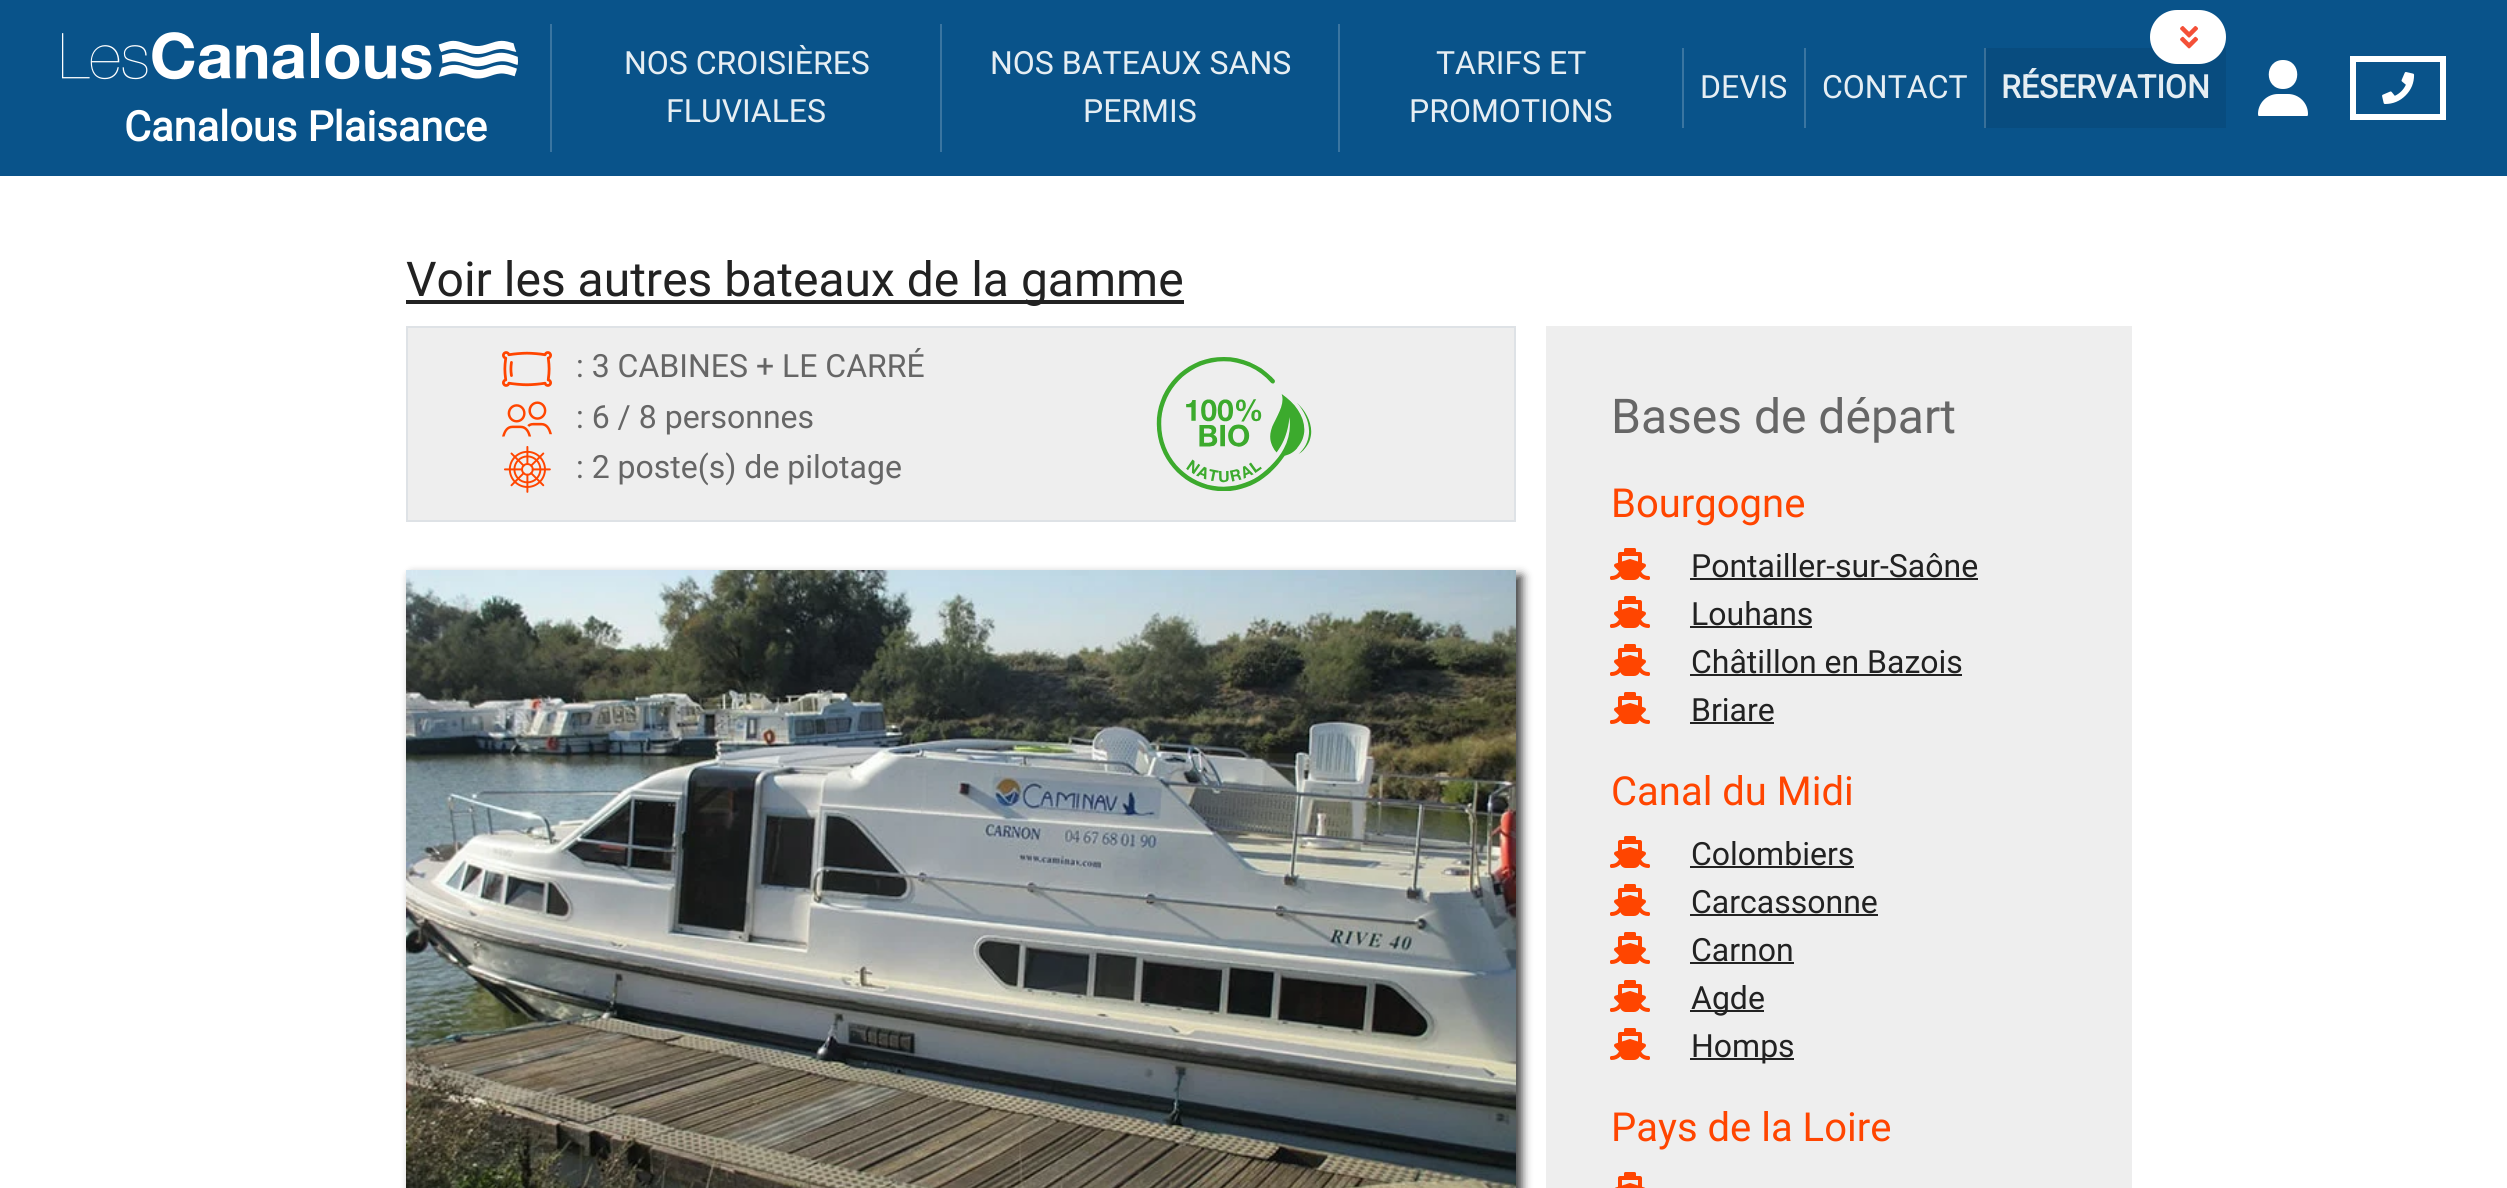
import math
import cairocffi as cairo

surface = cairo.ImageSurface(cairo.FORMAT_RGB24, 2507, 1188)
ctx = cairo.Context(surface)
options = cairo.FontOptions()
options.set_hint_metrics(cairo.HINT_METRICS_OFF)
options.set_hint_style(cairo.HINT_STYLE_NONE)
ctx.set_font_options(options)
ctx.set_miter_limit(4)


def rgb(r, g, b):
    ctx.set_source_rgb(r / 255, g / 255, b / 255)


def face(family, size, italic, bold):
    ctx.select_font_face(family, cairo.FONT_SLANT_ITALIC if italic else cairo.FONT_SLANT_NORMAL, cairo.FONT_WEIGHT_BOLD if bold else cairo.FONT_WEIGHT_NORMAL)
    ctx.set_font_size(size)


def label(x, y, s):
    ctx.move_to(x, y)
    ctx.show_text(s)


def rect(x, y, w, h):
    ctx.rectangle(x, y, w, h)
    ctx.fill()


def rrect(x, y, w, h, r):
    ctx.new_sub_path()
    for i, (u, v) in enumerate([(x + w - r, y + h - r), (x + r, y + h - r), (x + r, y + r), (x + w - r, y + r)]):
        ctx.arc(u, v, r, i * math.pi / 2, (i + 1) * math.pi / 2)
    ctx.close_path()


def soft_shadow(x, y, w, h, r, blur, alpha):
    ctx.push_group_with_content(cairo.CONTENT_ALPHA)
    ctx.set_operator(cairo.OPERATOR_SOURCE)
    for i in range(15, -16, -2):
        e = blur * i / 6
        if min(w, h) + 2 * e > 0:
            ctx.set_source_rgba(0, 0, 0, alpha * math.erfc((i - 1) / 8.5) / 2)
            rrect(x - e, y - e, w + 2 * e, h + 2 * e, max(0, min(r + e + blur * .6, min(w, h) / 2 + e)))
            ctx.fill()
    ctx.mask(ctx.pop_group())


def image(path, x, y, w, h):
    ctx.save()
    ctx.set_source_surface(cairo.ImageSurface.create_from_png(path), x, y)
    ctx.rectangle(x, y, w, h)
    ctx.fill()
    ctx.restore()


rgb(255, 255, 255)
ctx.paint()
rgb(9, 83, 138)
rect(0, 0, 2507, 176)
image('image0.png', 62, 32, 456, 48)
face('Roboto', 41.5, 0, 1)
rgb(255, 255, 255)
label(124, 141, 'Canalous Plaisance')
rgb(58, 117, 161)
rect(550, 24, 2, 128)
face('Roboto', 32, 0, 0)
rgb(230, 238, 243)
label(624, 74, 'NOS CROISIÈRES')
label(666, 122, 'FLUVIALES')
rgb(58, 117, 161)
rect(940, 24, 2, 128)
rgb(230, 238, 243)
label(990, 74, 'NOS BATEAUX SANS')
label(1083, 122, 'PERMIS')
rgb(58, 117, 161)
rect(1338, 24, 2, 128)
rgb(230, 238, 243)
label(1436, 74, 'TARIFS ET')
label(1409, 122, 'PROMOTIONS')
rgb(58, 117, 161)
rect(1682, 48, 2, 80)
rgb(230, 238, 243)
label(1700, 98, 'DEVIS')
rgb(58, 117, 161)
rect(1804, 48, 2, 80)
rgb(230, 238, 243)
label(1822, 98, 'CONTACT')
rgb(8, 76, 127)
rect(1986, 48, 240, 80)
rgb(255, 255, 255)
rrect(2150, 10, 76, 54, 27)
ctx.fill()
image('image1.png', 2180, 26, 18, 23)
rgb(57, 112, 153)
rect(1984, 48, 2, 80)
face('Roboto', 32, 0, 1)
rgb(230, 238, 243)
label(2001, 98, 'RÉSERVATION')
ctx.save()
ctx.rectangle(2258, 60, 50, 56)
ctx.clip()
rgb(255, 255, 255)
ctx.new_path()
ctx.move_to(2283, 89)
ctx.curve_to(2302, 89, 2302, 60, 2283, 60)
ctx.curve_to(2264, 60, 2264, 89, 2283, 89)
ctx.close_path()
ctx.move_to(2278, 94)
ctx.curve_to(2267, 94, 2258, 103, 2258, 114)
ctx.curve_to(2258, 116, 2259, 117, 2261, 117)
ctx.line_to(2305, 117)
ctx.curve_to(2307, 117, 2308, 116, 2308, 114)
ctx.curve_to(2308, 103, 2299, 94, 2288, 94)
ctx.close_path()
ctx.fill()
ctx.restore()
ctx.rectangle(2353, 59, 90, 58)
rgb(255, 255, 255)
ctx.set_line_width(6)
ctx.stroke()
image('image2.png', 2382, 72, 33, 32)
rgb(34, 34, 34)
rect(406, 300, 778, 4)
face('Roboto', 48, 0, 0)
label(406, 296, 'Voir les autres bateaux de la gamme')
rgb(238, 238, 238)
ctx.rectangle(407, 327, 1108, 194)
ctx.fill_preserve()
rgb(222, 226, 230)
ctx.set_line_width(2)
ctx.stroke()
image('image3.png', 502, 351, 50, 36)
face('Roboto', 32, 0, 0)
rgb(102, 102, 102)
label(576, 377, ': 3 CABINES + LE CARRÉ')
image('image4.png', 502, 401, 50, 36)
label(576, 428, ': 6 / 8 personnes')
image('image5.png', 504, 446, 47, 47)
label(576, 478, ': 2 poste(s) de pilotage')
image('image6.png', 1156, 357, 156, 134)
rgb(0, 0, 0)
soft_shadow(412, 576, 1110, 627, 0, 5, 0.75)
image('image7.png', 406, 570, 1110, 618)
rgb(238, 238, 238)
rect(1546, 326, 586, 862)
face('Roboto', 48, 0, 0)
rgb(102, 102, 102)
label(1611, 433, 'Bases de départ')
face('Roboto', 40, 0, 0)
rgb(255, 69, 0)
label(1611, 517, 'Bourgogne')
image('image8.png', 1610, 548, 40, 32)
face('Roboto', 32, 0, 0)
rgb(34, 34, 34)
label(1691, 577, 'Pontailler-sur-Saône')
rect(1690, 578, 288, 2)
image('image8.png', 1610, 596, 40, 32)
label(1691, 625, 'Louhans')
rect(1690, 626, 122, 2)
image('image8.png', 1610, 644, 40, 32)
label(1691, 673, 'Châtillon en Bazois')
rect(1690, 674, 272, 2)
image('image8.png', 1610, 692, 40, 32)
label(1691, 721, 'Briare')
rect(1690, 722, 84, 2)
face('Roboto', 40, 0, 0)
rgb(255, 69, 0)
label(1611, 805, 'Canal du Midi')
image('image8.png', 1610, 836, 40, 32)
face('Roboto', 32, 0, 0)
rgb(34, 34, 34)
label(1691, 865, 'Colombiers')
rect(1690, 866, 164, 2)
image('image8.png', 1610, 884, 40, 32)
label(1691, 913, 'Carcassonne')
rect(1690, 914, 188, 2)
image('image8.png', 1610, 932, 40, 32)
label(1691, 961, 'Carnon')
rect(1690, 962, 104, 2)
image('image8.png', 1610, 980, 40, 32)
rect(1690, 1010, 74, 2)
label(1691, 1009, 'Agde')
image('image8.png', 1610, 1028, 40, 32)
rect(1690, 1058, 104, 2)
label(1691, 1057, 'Homps')
face('Roboto', 40, 0, 0)
rgb(255, 69, 0)
label(1611, 1141, 'Pays de la Loire')
image('image9.png', 1615, 1172, 30, 16)
surface.write_to_png('render.png')
